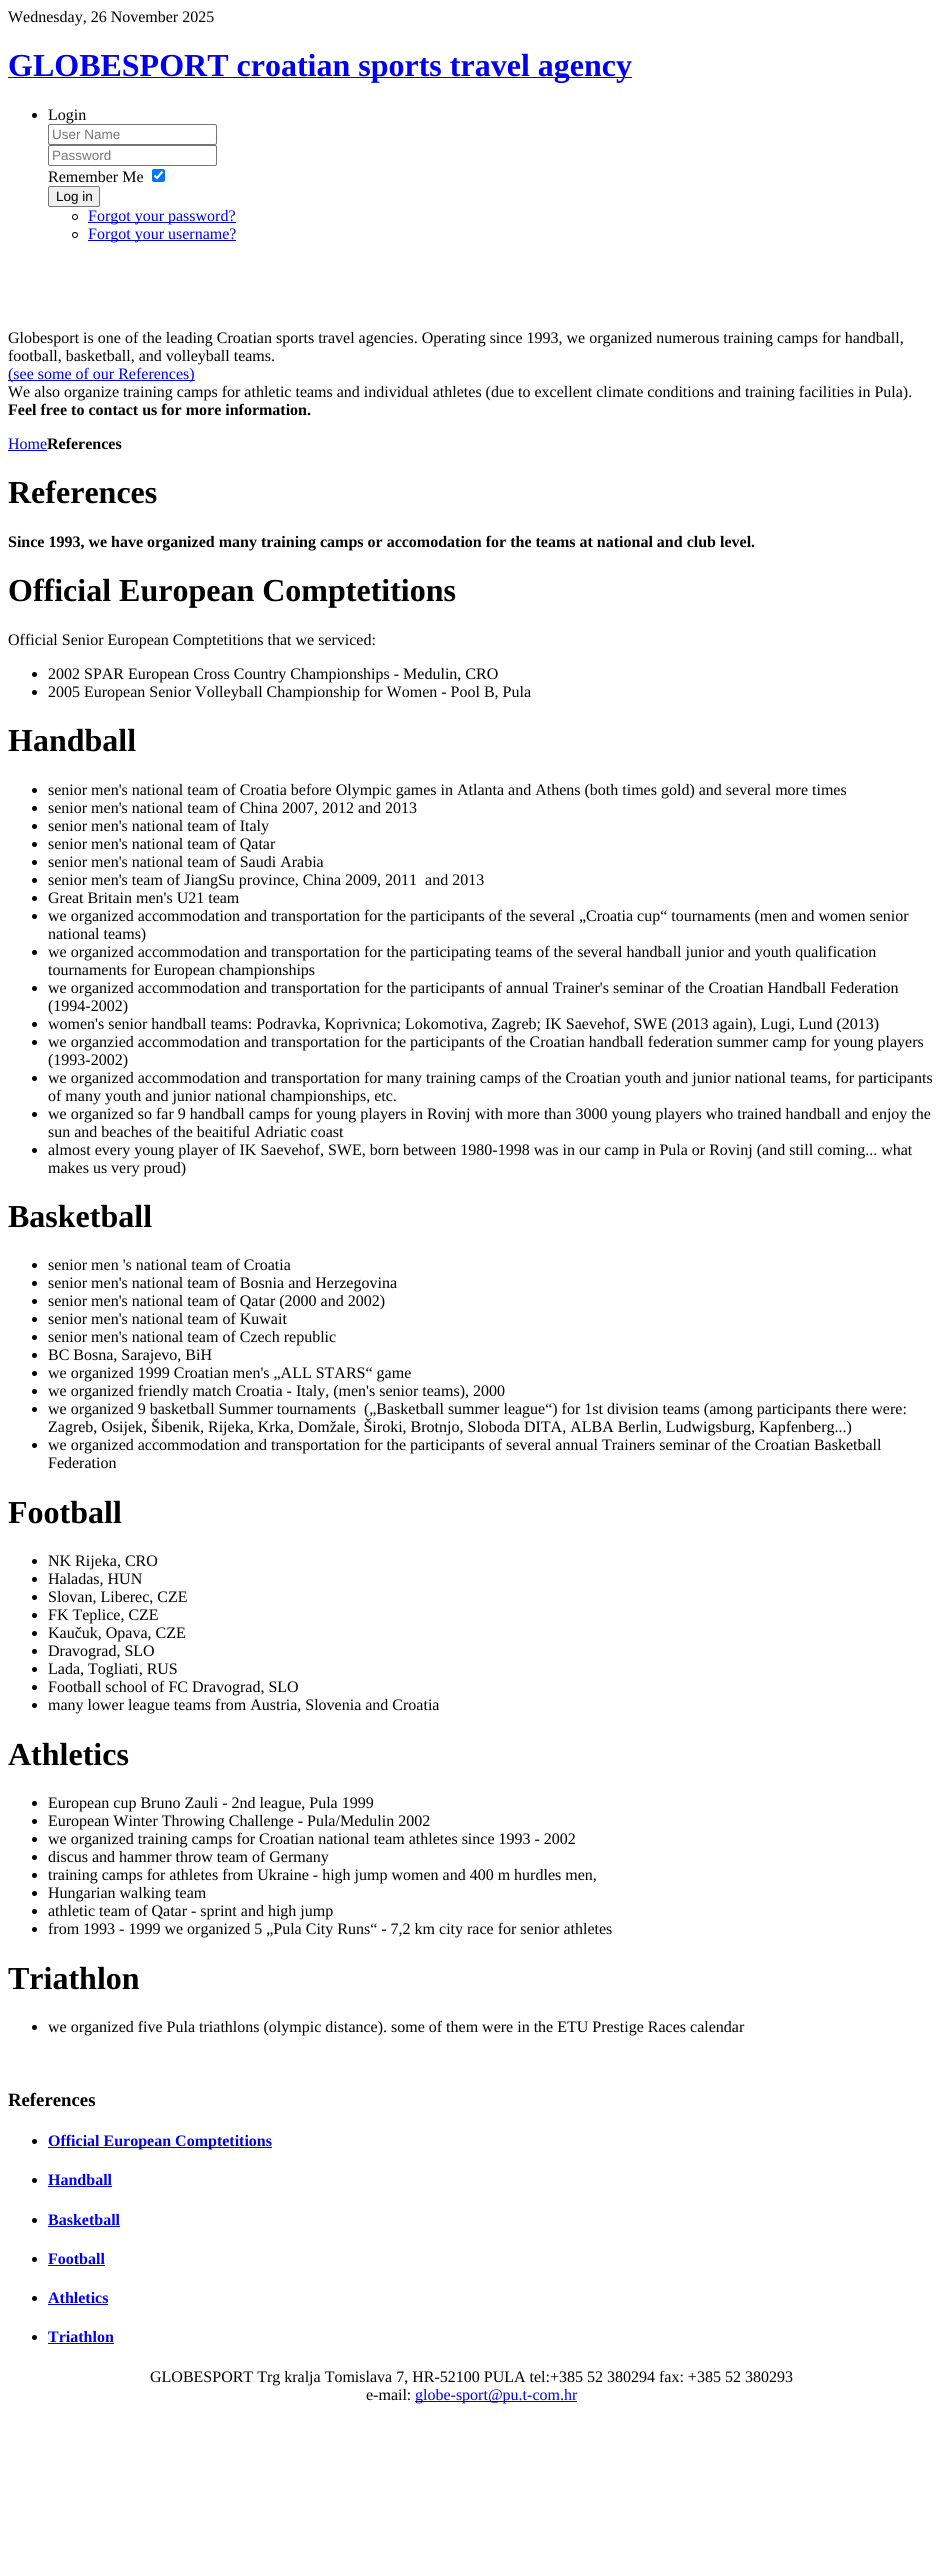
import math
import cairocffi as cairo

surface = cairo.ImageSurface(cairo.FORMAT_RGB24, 943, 2563)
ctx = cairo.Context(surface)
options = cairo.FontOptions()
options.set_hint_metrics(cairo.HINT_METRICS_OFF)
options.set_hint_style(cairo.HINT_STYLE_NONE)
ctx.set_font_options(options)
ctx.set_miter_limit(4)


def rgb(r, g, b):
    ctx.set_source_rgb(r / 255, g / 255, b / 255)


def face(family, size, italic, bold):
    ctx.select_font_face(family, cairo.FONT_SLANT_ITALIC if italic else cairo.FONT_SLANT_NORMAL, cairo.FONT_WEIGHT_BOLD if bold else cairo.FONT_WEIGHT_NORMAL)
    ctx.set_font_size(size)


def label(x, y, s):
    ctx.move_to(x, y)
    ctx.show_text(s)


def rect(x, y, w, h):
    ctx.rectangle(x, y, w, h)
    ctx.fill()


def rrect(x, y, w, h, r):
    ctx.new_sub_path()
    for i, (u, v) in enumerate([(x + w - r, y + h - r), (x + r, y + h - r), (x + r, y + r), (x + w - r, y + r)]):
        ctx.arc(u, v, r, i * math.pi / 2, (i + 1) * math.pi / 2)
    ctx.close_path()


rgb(255, 255, 255)
ctx.paint()
face('Liberation Serif', 16, 0, 0)
rgb(0, 0, 0)
label(8, 22, 'Wednesday, 26 November 2025')
rgb(0, 0, 238)
rect(8, 77, 624, 1)
face('Liberation Serif', 32, 0, 1)
label(8, 76, 'GLOBESPORT croatian sports travel agency')
rgb(0, 0, 0)
ctx.new_path()
ctx.arc(34.5, 115.5, 2.5, 0, 2 * math.pi)
ctx.fill()
face('Liberation Serif', 16, 0, 0)
label(48, 120, 'Login')
rrect(48.5, 124.5, 168, 20, 1.5)
rgb(118, 118, 118)
ctx.set_line_width(1)
ctx.stroke()
face('Liberation Sans', 13.5, 0, 0)
rgb(117, 117, 117)
label(52, 139, 'User Name')
rrect(48.5, 145.5, 168, 20, 1.5)
rgb(118, 118, 118)
ctx.stroke()
rgb(117, 117, 117)
label(52, 160, 'Password')
face('Liberation Serif', 16, 0, 0)
rgb(0, 0, 0)
label(48, 182, 'Remember Me')
rgb(0, 117, 255)
rrect(152, 169, 13, 13, 2)
ctx.fill()
ctx.new_path()
ctx.move_to(154.5, 175.5)
ctx.line_to(157, 178)
ctx.line_to(162.5, 171.5)
rgb(255, 255, 255)
ctx.set_line_width(2.1)
ctx.stroke()
rgb(239, 239, 239)
rrect(48.5, 186.5, 51, 20, 1.5)
ctx.fill_preserve()
rgb(118, 118, 118)
ctx.set_line_width(1)
ctx.stroke()
face('Liberation Sans', 13.5, 0, 0)
rgb(0, 0, 0)
label(56, 201, 'Log in')
ctx.new_path()
ctx.arc(75, 217, 2.5, 0, 2 * math.pi)
ctx.stroke()
rgb(0, 0, 238)
rect(88, 222, 148, 1)
face('Liberation Serif', 16, 0, 0)
label(88, 221, 'Forgot your password?')
ctx.new_path()
ctx.arc(75, 235, 2.5, 0, 2 * math.pi)
rgb(0, 0, 0)
ctx.stroke()
rgb(0, 0, 238)
rect(88, 240, 148, 1)
label(88, 239, 'Forgot your username?')
rgb(0, 0, 0)
label(8, 343, 'Globesport is one of the leading Croatian sports travel agencies. Operating since 1993, we organized numerous training camps for handball,')
label(8, 361, 'football, basketball, and volleyball teams.')
rgb(0, 0, 238)
rect(8, 380, 187, 1)
label(8, 379, '(see some of our References)')
rgb(0, 0, 0)
label(8, 397, 'We also organize training camps for athletic teams and individual athletes (due to excellent climate conditions and training facilities in Pula).')
face('Liberation Serif', 16, 0, 1)
label(8, 415, 'Feel free to contact us for more information.')
face('Liberation Serif', 16, 0, 0)
rgb(0, 0, 238)
label(8, 449, 'Home')
rect(8, 450, 39, 1)
face('Liberation Serif', 16, 0, 1)
rgb(0, 0, 0)
label(47, 449, 'References')
face('Liberation Serif', 32, 0, 1)
label(8, 503, 'References')
face('Liberation Serif', 16, 0, 1)
label(8, 547, 'Since 1993, we have organized many training camps or accomodation for the teams at national and club level.')
face('Liberation Serif', 32, 0, 1)
label(8, 601, 'Official European Comptetitions')
face('Liberation Serif', 16, 0, 0)
label(8, 645, 'Official Senior European Comptetitions that we serviced:')
ctx.new_path()
ctx.arc(34.5, 674.5, 2.5, 0, 2 * math.pi)
ctx.fill()
label(48, 679, '2002 SPAR European Cross Country Championships - Medulin, CRO')
ctx.new_path()
ctx.arc(34.5, 692.5, 2.5, 0, 2 * math.pi)
ctx.fill()
label(48, 697, '2005 European Senior Volleyball Championship for Women - Pool B, Pula')
face('Liberation Serif', 32, 0, 1)
label(8, 751, 'Handball')
ctx.new_path()
ctx.arc(34.5, 790.5, 2.5, 0, 2 * math.pi)
ctx.fill()
face('Liberation Serif', 16, 0, 0)
label(48, 795, 'senior men\'s national team of Croatia before Olympic games in Atlanta and Athens (both times gold) and several more times')
ctx.new_path()
ctx.arc(34.5, 808.5, 2.5, 0, 2 * math.pi)
ctx.fill()
label(48, 813, 'senior men\'s national team of China 2007, 2012 and 2013')
ctx.new_path()
ctx.arc(34.5, 826.5, 2.5, 0, 2 * math.pi)
ctx.fill()
label(48, 831, 'senior men\'s national team of Italy')
ctx.new_path()
ctx.arc(34.5, 844.5, 2.5, 0, 2 * math.pi)
ctx.fill()
label(48, 849, 'senior men\'s national team of Qatar')
ctx.new_path()
ctx.arc(34.5, 862.5, 2.5, 0, 2 * math.pi)
ctx.fill()
label(48, 867, 'senior men\'s national team of Saudi Arabia')
ctx.new_path()
ctx.arc(34.5, 880.5, 2.5, 0, 2 * math.pi)
ctx.fill()
label(48, 885, 'senior men\'s team of JiangSu province, China 2009, 2011  and 2013')
ctx.new_path()
ctx.arc(34.5, 898.5, 2.5, 0, 2 * math.pi)
ctx.fill()
label(48, 903, 'Great Britain men\'s U21 team')
ctx.new_path()
ctx.arc(34.5, 916.5, 2.5, 0, 2 * math.pi)
ctx.fill()
label(48, 921, 'we organized accommodation and transportation for the participants of the several „Croatia cup“ tournaments (men and women senior')
label(48, 939, 'national teams)')
ctx.new_path()
ctx.arc(34.5, 952.5, 2.5, 0, 2 * math.pi)
ctx.fill()
label(48, 957, 'we organized accommodation and transportation for the participating teams of the several handball junior and youth qualification')
label(48, 975, 'tournaments for European championships')
ctx.new_path()
ctx.arc(34.5, 988.5, 2.5, 0, 2 * math.pi)
ctx.fill()
label(48, 993, 'we organized accommodation and transportation for the participants of annual Trainer\'s seminar of the Croatian Handball Federation')
label(48, 1011, '(1994-2002)')
ctx.new_path()
ctx.arc(34.5, 1024.5, 2.5, 0, 2 * math.pi)
ctx.fill()
label(48, 1029, 'women\'s senior handball teams: Podravka, Koprivnica; Lokomotiva, Zagreb; IK Saevehof, SWE (2013 again), Lugi, Lund (2013)')
ctx.new_path()
ctx.arc(34.5, 1042.5, 2.5, 0, 2 * math.pi)
ctx.fill()
label(48, 1047, 'we organzied accommodation and transportation for the participants of the Croatian handball federation summer camp for young players')
label(48, 1065, '(1993-2002)')
ctx.new_path()
ctx.arc(34.5, 1078.5, 2.5, 0, 2 * math.pi)
ctx.fill()
label(48, 1083, 'we organized accommodation and transportation for many training camps of the Croatian youth and junior national teams, for participants')
label(48, 1101, 'of many youth and junior national championships, etc.')
ctx.new_path()
ctx.arc(34.5, 1114.5, 2.5, 0, 2 * math.pi)
ctx.fill()
label(48, 1119, 'we organized so far 9 handball camps for young players in Rovinj with more than 3000 young players who trained handball and enjoy the')
label(48, 1137, 'sun and beaches of the beaitiful Adriatic coast')
ctx.new_path()
ctx.arc(34.5, 1150.5, 2.5, 0, 2 * math.pi)
ctx.fill()
label(48, 1155, 'almost every young player of IK Saevehof, SWE, born between 1980-1998 was in our camp in Pula or Rovinj (and still coming... what')
label(48, 1173, 'makes us very proud)')
face('Liberation Serif', 32, 0, 1)
label(8, 1227, 'Basketball')
ctx.new_path()
ctx.arc(34.5, 1265.5, 2.5, 0, 2 * math.pi)
ctx.fill()
face('Liberation Serif', 16, 0, 0)
label(48, 1270, 'senior men \'s national team of Croatia')
ctx.new_path()
ctx.arc(34.5, 1283.5, 2.5, 0, 2 * math.pi)
ctx.fill()
label(48, 1288, 'senior men\'s national team of Bosnia and Herzegovina')
ctx.new_path()
ctx.arc(34.5, 1301.5, 2.5, 0, 2 * math.pi)
ctx.fill()
label(48, 1306, 'senior men\'s national team of Qatar (2000 and 2002)')
ctx.new_path()
ctx.arc(34.5, 1319.5, 2.5, 0, 2 * math.pi)
ctx.fill()
label(48, 1324, 'senior men\'s national team of Kuwait')
ctx.new_path()
ctx.arc(34.5, 1337.5, 2.5, 0, 2 * math.pi)
ctx.fill()
label(48, 1342, 'senior men\'s national team of Czech republic')
ctx.new_path()
ctx.arc(34.5, 1355.5, 2.5, 0, 2 * math.pi)
ctx.fill()
label(48, 1360, 'BC Bosna, Sarajevo, BiH')
ctx.new_path()
ctx.arc(34.5, 1373.5, 2.5, 0, 2 * math.pi)
ctx.fill()
label(48, 1378, 'we organized 1999 Croatian men\'s „ALL STARS“ game')
ctx.new_path()
ctx.arc(34.5, 1391.5, 2.5, 0, 2 * math.pi)
ctx.fill()
label(48, 1396, 'we organized friendly match Croatia - Italy, (men\'s senior teams), 2000')
ctx.new_path()
ctx.arc(34.5, 1409.5, 2.5, 0, 2 * math.pi)
ctx.fill()
label(48, 1414, 'we organized 9 basketball Summer tournaments  („Basketball summer league“) for 1st division teams (among participants there were:')
label(48, 1432, 'Zagreb, Osijek, Šibenik, Rijeka, Krka, Domžale, Široki, Brotnjo, Sloboda DITA, ALBA Berlin, Ludwigsburg, Kapfenberg...)')
ctx.new_path()
ctx.arc(34.5, 1445.5, 2.5, 0, 2 * math.pi)
ctx.fill()
label(48, 1450, 'we organized accommodation and transportation for the participants of several annual Trainers seminar of the Croatian Basketball')
label(48, 1468, 'Federation')
face('Liberation Serif', 32, 0, 1)
label(8, 1523, 'Football')
ctx.new_path()
ctx.arc(34.5, 1561.5, 2.5, 0, 2 * math.pi)
ctx.fill()
face('Liberation Serif', 16, 0, 0)
label(48, 1566, 'NK Rijeka, CRO')
ctx.new_path()
ctx.arc(34.5, 1579.5, 2.5, 0, 2 * math.pi)
ctx.fill()
label(48, 1584, 'Haladas, HUN')
ctx.new_path()
ctx.arc(34.5, 1597.5, 2.5, 0, 2 * math.pi)
ctx.fill()
label(48, 1602, 'Slovan, Liberec, CZE')
ctx.new_path()
ctx.arc(34.5, 1615.5, 2.5, 0, 2 * math.pi)
ctx.fill()
label(48, 1620, 'FK Teplice, CZE')
ctx.new_path()
ctx.arc(34.5, 1633.5, 2.5, 0, 2 * math.pi)
ctx.fill()
label(48, 1638, 'Kaučuk, Opava, CZE')
ctx.new_path()
ctx.arc(34.5, 1651.5, 2.5, 0, 2 * math.pi)
ctx.fill()
label(48, 1656, 'Dravograd, SLO')
ctx.new_path()
ctx.arc(34.5, 1669.5, 2.5, 0, 2 * math.pi)
ctx.fill()
label(48, 1674, 'Lada, Togliati, RUS')
ctx.new_path()
ctx.arc(34.5, 1687.5, 2.5, 0, 2 * math.pi)
ctx.fill()
label(48, 1692, 'Football school of FC Dravograd, SLO')
ctx.new_path()
ctx.arc(34.5, 1705.5, 2.5, 0, 2 * math.pi)
ctx.fill()
label(48, 1710, 'many lower league teams from Austria, Slovenia and Croatia')
face('Liberation Serif', 32, 0, 1)
label(8, 1765, 'Athletics')
ctx.new_path()
ctx.arc(34.5, 1803.5, 2.5, 0, 2 * math.pi)
ctx.fill()
face('Liberation Serif', 16, 0, 0)
label(48, 1808, 'European cup Bruno Zauli - 2nd league, Pula 1999')
ctx.new_path()
ctx.arc(34.5, 1821.5, 2.5, 0, 2 * math.pi)
ctx.fill()
label(48, 1826, 'European Winter Throwing Challenge - Pula/Medulin 2002')
ctx.new_path()
ctx.arc(34.5, 1839.5, 2.5, 0, 2 * math.pi)
ctx.fill()
label(48, 1844, 'we organized training camps for Croatian national team athletes since 1993 - 2002')
ctx.new_path()
ctx.arc(34.5, 1857.5, 2.5, 0, 2 * math.pi)
ctx.fill()
label(48, 1862, 'discus and hammer throw team of Germany')
ctx.new_path()
ctx.arc(34.5, 1875.5, 2.5, 0, 2 * math.pi)
ctx.fill()
label(48, 1880, 'training camps for athletes from Ukraine - high jump women and 400 m hurdles men,')
ctx.new_path()
ctx.arc(34.5, 1893.5, 2.5, 0, 2 * math.pi)
ctx.fill()
label(48, 1898, 'Hungarian walking team')
ctx.new_path()
ctx.arc(34.5, 1911.5, 2.5, 0, 2 * math.pi)
ctx.fill()
label(48, 1916, 'athletic team of Qatar - sprint and high jump')
ctx.new_path()
ctx.arc(34.5, 1929.5, 2.5, 0, 2 * math.pi)
ctx.fill()
label(48, 1934, 'from 1993 - 1999 we organized 5 „Pula City Runs“ - 7,2 km city race for senior athletes')
face('Liberation Serif', 32, 0, 1)
label(8, 1989, 'Triathlon')
ctx.new_path()
ctx.arc(34.5, 2027.5, 2.5, 0, 2 * math.pi)
ctx.fill()
face('Liberation Serif', 16, 0, 0)
label(48, 2032, 'we organized five Pula triathlons (olympic distance). some of them were in the ETU Prestige Races calendar')
face('Liberation Serif', 18.75, 0, 1)
label(8, 2106, 'References')
ctx.new_path()
ctx.arc(34.5, 2141.5, 2.5, 0, 2 * math.pi)
ctx.fill()
rgb(0, 0, 238)
rect(48, 2147, 224, 1)
face('Liberation Serif', 16, 0, 1)
label(48, 2146, 'Official European Comptetitions')
rgb(0, 0, 0)
ctx.new_path()
ctx.arc(34.5, 2180.5, 2.5, 0, 2 * math.pi)
ctx.fill()
rgb(0, 0, 238)
label(48, 2185, 'Handball')
rect(48, 2186, 64, 1)
rgb(0, 0, 0)
ctx.new_path()
ctx.arc(34.5, 2220.5, 2.5, 0, 2 * math.pi)
ctx.fill()
rgb(0, 0, 238)
label(48, 2225, 'Basketball')
rect(48, 2226, 72, 1)
rgb(0, 0, 0)
ctx.new_path()
ctx.arc(34.5, 2259.5, 2.5, 0, 2 * math.pi)
ctx.fill()
rgb(0, 0, 238)
label(48, 2264, 'Football')
rect(48, 2265, 57, 1)
rgb(0, 0, 0)
ctx.new_path()
ctx.arc(34.5, 2298.5, 2.5, 0, 2 * math.pi)
ctx.fill()
rgb(0, 0, 238)
label(48, 2303, 'Athletics')
rect(48, 2304, 60, 1)
rgb(0, 0, 0)
ctx.new_path()
ctx.arc(34.5, 2337.5, 2.5, 0, 2 * math.pi)
ctx.fill()
rgb(0, 0, 238)
label(48, 2342, 'Triathlon')
rect(48, 2343, 66, 1)
face('Liberation Serif', 16, 0, 0)
rgb(0, 0, 0)
label(150, 2382, 'GLOBESPORT Trg kralja Tomislava 7, HR-52100 PULA tel:+385 52 380294 fax: +385 52 380293')
label(366, 2400, 'e-mail:')
rgb(0, 0, 238)
rect(415, 2401, 162, 1)
label(415, 2400, 'globe-sport@pu.t-com.hr')
surface.write_to_png('render.png')
